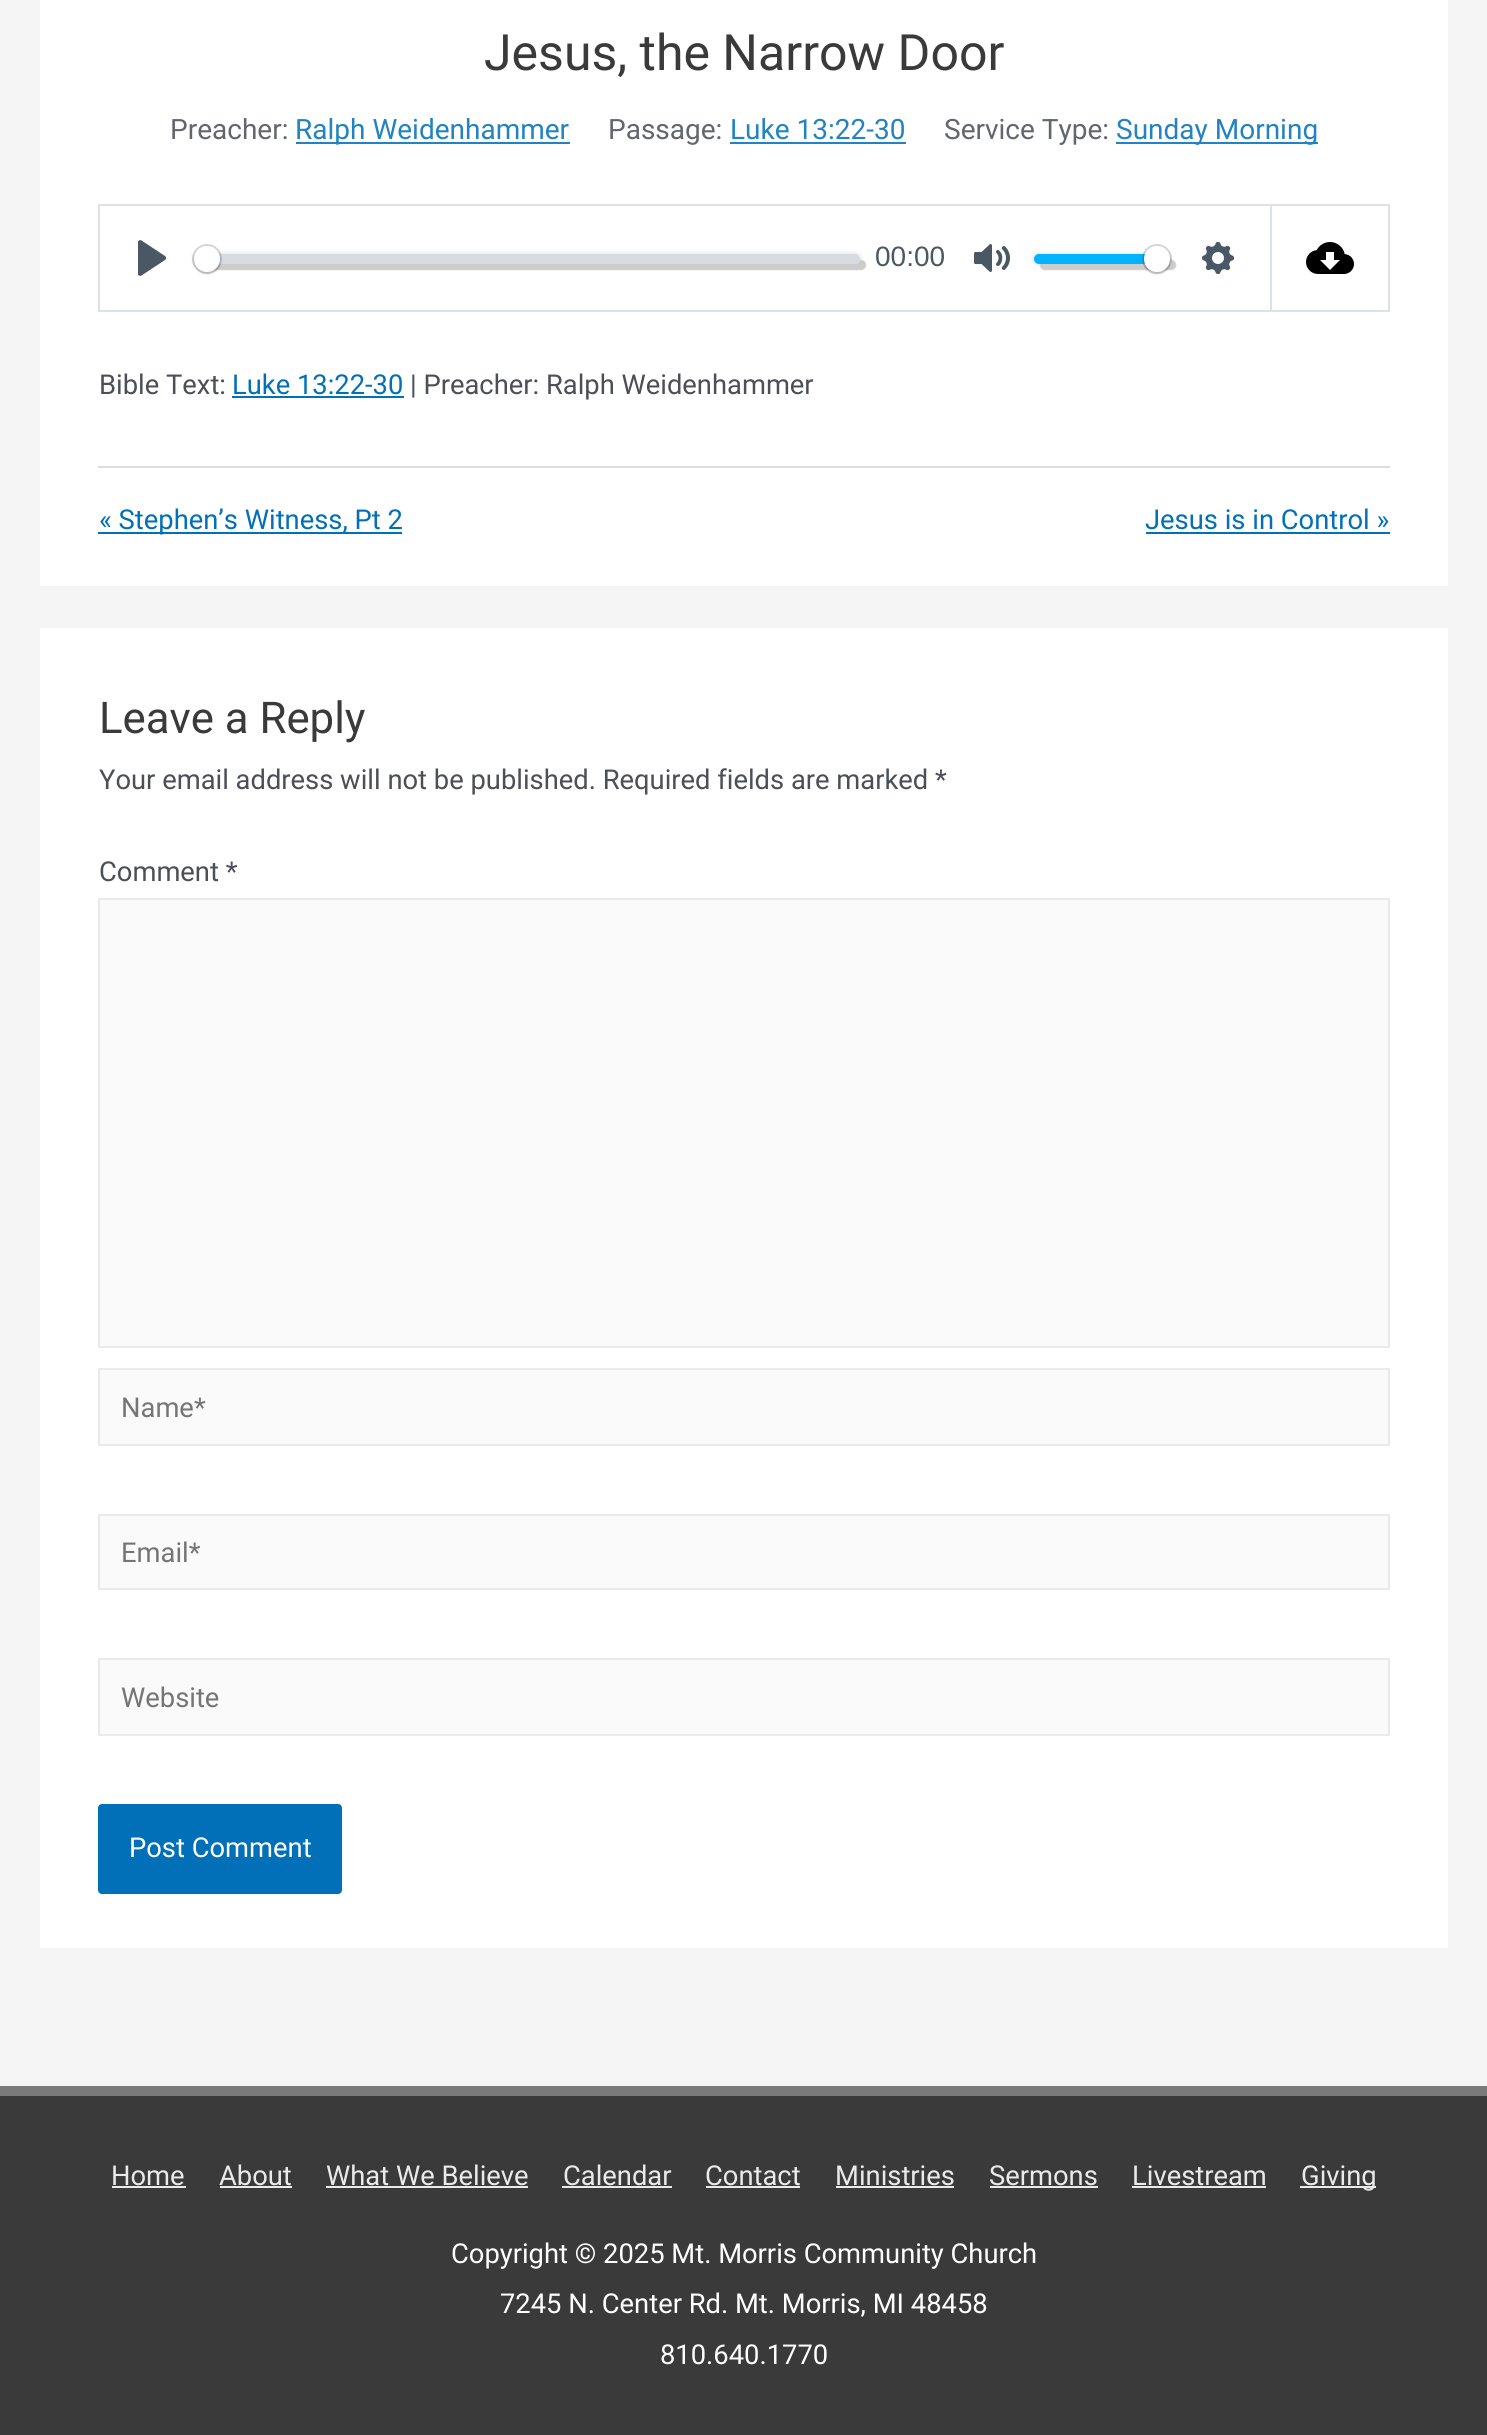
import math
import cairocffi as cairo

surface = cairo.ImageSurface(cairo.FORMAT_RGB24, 1487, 2435)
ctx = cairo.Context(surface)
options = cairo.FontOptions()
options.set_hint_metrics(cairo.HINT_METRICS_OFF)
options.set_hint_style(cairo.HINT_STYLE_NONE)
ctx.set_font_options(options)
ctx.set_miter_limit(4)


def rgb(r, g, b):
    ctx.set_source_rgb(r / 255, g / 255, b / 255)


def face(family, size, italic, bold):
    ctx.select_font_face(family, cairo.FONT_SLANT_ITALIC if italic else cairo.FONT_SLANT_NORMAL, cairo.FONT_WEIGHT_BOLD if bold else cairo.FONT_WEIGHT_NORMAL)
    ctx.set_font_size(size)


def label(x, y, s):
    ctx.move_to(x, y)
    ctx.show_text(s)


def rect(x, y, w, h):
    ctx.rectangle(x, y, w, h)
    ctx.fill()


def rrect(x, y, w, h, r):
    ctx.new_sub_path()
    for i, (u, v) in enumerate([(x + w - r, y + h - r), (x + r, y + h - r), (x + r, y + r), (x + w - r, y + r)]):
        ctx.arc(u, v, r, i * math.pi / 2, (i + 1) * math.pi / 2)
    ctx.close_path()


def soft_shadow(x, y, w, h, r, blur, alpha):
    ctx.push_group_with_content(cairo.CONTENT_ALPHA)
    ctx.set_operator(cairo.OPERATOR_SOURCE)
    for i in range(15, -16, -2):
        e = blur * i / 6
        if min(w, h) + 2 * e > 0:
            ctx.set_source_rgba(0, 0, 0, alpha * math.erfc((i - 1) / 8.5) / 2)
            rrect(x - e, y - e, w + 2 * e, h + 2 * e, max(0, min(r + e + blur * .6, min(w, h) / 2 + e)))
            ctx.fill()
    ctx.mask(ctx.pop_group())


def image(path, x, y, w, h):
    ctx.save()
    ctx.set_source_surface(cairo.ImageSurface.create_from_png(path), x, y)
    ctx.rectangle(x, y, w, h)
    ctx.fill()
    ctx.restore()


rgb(245, 245, 245)
ctx.paint()
rgb(255, 255, 255)
rect(40, 0, 1408, 586)
face('Roboto', 50, 0, 0)
rgb(58, 58, 58)
label(484, 70, 'Jesus, the Narrow Door')
face('Roboto', 28, 0, 0)
rgb(98, 102, 110)
label(170, 139, 'Preacher:')
rgb(34, 131, 194)
rect(296, 142, 274, 2)
label(295, 139, 'Ralph Weidenhammer')
rgb(98, 102, 110)
label(608, 139, 'Passage:')
rgb(34, 131, 194)
label(730, 139, 'Luke 13:22-30')
rect(730, 142, 176, 2)
rgb(98, 102, 110)
label(944, 139, 'Service Type:')
rgb(34, 131, 194)
rect(1116, 142, 202, 2)
label(1116, 139, 'Sunday Morning')
ctx.rectangle(99, 205, 1172, 106)
rgb(219, 227, 232)
ctx.stroke()
rgb(74, 87, 100)
ctx.new_path()
ctx.move_to(165, 256)
ctx.line_to(141.5, 240.5)
ctx.curve_to(140, 239.5, 138, 240.5, 138, 242)
ctx.line_to(138, 274)
ctx.curve_to(138, 275.5, 140, 276.5, 141.5, 275.5)
ctx.line_to(165, 260)
ctx.curve_to(166.5, 259, 166.5, 257, 165, 256)
ctx.close_path()
ctx.fill()
ctx.save()
ctx.set_fill_rule(cairo.FILL_RULE_EVEN_ODD)
ctx.new_path()
ctx.move_to(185, 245)
ctx.line_to(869, 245)
ctx.line_to(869, 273)
ctx.line_to(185, 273)
ctx.close_path()
ctx.move_to(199, 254)
ctx.line_to(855, 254)
ctx.curve_to(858, 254, 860, 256, 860, 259)
ctx.curve_to(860, 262, 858, 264, 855, 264)
ctx.line_to(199, 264)
ctx.curve_to(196, 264, 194, 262, 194, 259)
ctx.curve_to(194, 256, 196, 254, 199, 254)
ctx.close_path()
ctx.clip()
rgb(217, 217, 217)
soft_shadow(194, 254, 666, 10, 5, 2.5, 1)
ctx.restore()
ctx.save()
ctx.set_fill_rule(cairo.FILL_RULE_EVEN_ODD)
ctx.new_path()
ctx.move_to(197, 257)
ctx.line_to(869, 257)
ctx.line_to(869, 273)
ctx.line_to(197, 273)
ctx.close_path()
ctx.move_to(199, 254)
ctx.line_to(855, 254)
ctx.curve_to(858, 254, 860, 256, 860, 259)
ctx.curve_to(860, 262, 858, 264, 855, 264)
ctx.line_to(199, 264)
ctx.curve_to(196, 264, 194, 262, 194, 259)
ctx.curve_to(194, 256, 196, 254, 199, 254)
ctx.close_path()
ctx.clip()
rgb(204, 204, 204)
soft_shadow(200, 260, 666, 10, 5, 0.5, 1)
ctx.restore()
ctx.set_source_rgba(0.757, 0.788, 0.82, 0.66)
rrect(194, 254, 666, 10, 5)
ctx.fill()
ctx.arc(207, 259, 14, 0, 2 * math.pi)
ctx.set_source_rgba(0.137, 0.161, 0.184, 0.2)
ctx.stroke()
rgb(0, 0, 0)
soft_shadow(194, 248, 26, 26, 13, 1, 0.15)
rgb(255, 255, 255)
ctx.arc(207, 259, 13, 0, 2 * math.pi)
ctx.fill()
face('Liberation Sans', 28, 0, 0)
rgb(74, 87, 100)
label(875, 266, '00:00')
image('image0.png', 974, 244, 36, 28)
rgb(217, 217, 217)
soft_shadow(1034, 254, 136, 10, 5, 2.5, 1)
rgb(204, 204, 204)
soft_shadow(1040, 260, 136, 10, 5, 0.5, 1)
rgb(0, 179, 255)
rrect(1034, 254, 136, 10, 5)
ctx.fill()
ctx.arc(1157, 259, 14, 0, 2 * math.pi)
ctx.set_source_rgba(0.137, 0.161, 0.184, 0.2)
ctx.stroke()
rgb(0, 0, 0)
soft_shadow(1144, 248, 26, 26, 13, 1, 0.15)
rgb(255, 255, 255)
ctx.arc(1157, 259, 13, 0, 2 * math.pi)
ctx.fill()
image('image1.png', 1202, 242, 32, 32)
rgb(219, 227, 232)
rect(1272, 204, 118, 2)
rect(1388, 204, 2, 108)
rect(1272, 310, 118, 2)
image('image2.png', 1306, 242, 48, 32)
face('Roboto', 27.35, 0, 0)
rgb(75, 79, 88)
label(99, 394, 'Bible Text:')
rgb(1, 112, 185)
label(232, 394, 'Luke 13:22-30')
rect(232, 396, 172, 2)
rgb(75, 79, 88)
label(410, 394, '| Preacher: Ralph Weidenhammer')
rgb(221, 221, 221)
rect(98, 466, 1292, 2)
rgb(1, 112, 185)
rect(98, 532, 304, 2)
label(99, 529, '« Stephen’s Witness, Pt 2')
label(1145, 529, 'Jesus is in Control »')
rect(1146, 532, 244, 2)
rgb(255, 255, 255)
rect(40, 628, 1408, 1320)
face('Roboto', 43.75, 0, 0)
rgb(58, 58, 58)
label(99, 733, 'Leave a Reply')
face('Roboto', 27.35, 0, 0)
rgb(75, 79, 88)
label(99, 789, 'Your email address will not be published. Required fields are marked *')
label(99, 881, 'Comment *')
rgb(250, 250, 250)
ctx.rectangle(99, 899, 1290, 448)
ctx.fill_preserve()
rgb(234, 234, 234)
ctx.stroke()
rgb(250, 250, 250)
ctx.rectangle(99, 1369, 1290, 76)
ctx.fill_preserve()
rgb(234, 234, 234)
ctx.stroke()
rgb(117, 117, 117)
label(121, 1417, 'Name*')
rgb(250, 250, 250)
ctx.rectangle(99, 1515, 1290, 74)
ctx.fill_preserve()
rgb(234, 234, 234)
ctx.stroke()
rgb(117, 117, 117)
label(121, 1562, 'Email*')
rgb(250, 250, 250)
ctx.rectangle(99, 1659, 1290, 76)
ctx.fill_preserve()
rgb(234, 234, 234)
ctx.stroke()
rgb(117, 117, 117)
label(121, 1707, 'Website')
rgb(1, 112, 185)
rrect(98, 1804, 244, 90, 4)
ctx.fill()
rgb(255, 255, 255)
label(129, 1857, 'Post Comment')
rgb(122, 122, 122)
rect(0, 2086, 1487, 10)
rgb(58, 58, 58)
rect(0, 2096, 1487, 339)
rgb(234, 234, 234)
label(111, 2185, 'Home')
rect(112, 2186, 74, 2)
label(219, 2185, 'About')
rect(220, 2186, 72, 2)
label(326, 2185, 'What We Believe')
rect(326, 2186, 202, 2)
label(563, 2185, 'Calendar')
rect(562, 2186, 110, 2)
label(705, 2185, 'Contact')
rect(706, 2186, 94, 2)
label(835, 2185, 'Ministries')
rect(836, 2186, 118, 2)
label(989, 2185, 'Sermons')
rect(990, 2186, 108, 2)
label(1132, 2185, 'Livestream')
rect(1132, 2186, 134, 2)
rect(1300, 2186, 76, 2)
label(1301, 2185, 'Giving')
rgb(255, 255, 255)
label(451, 2263, 'Copyright © 2025 Mt. Morris Community Church')
label(500, 2313, '7245 N. Center Rd. Mt. Morris, MI 48458')
label(660, 2364, '810.640.1770')
surface.write_to_png('render.png')
